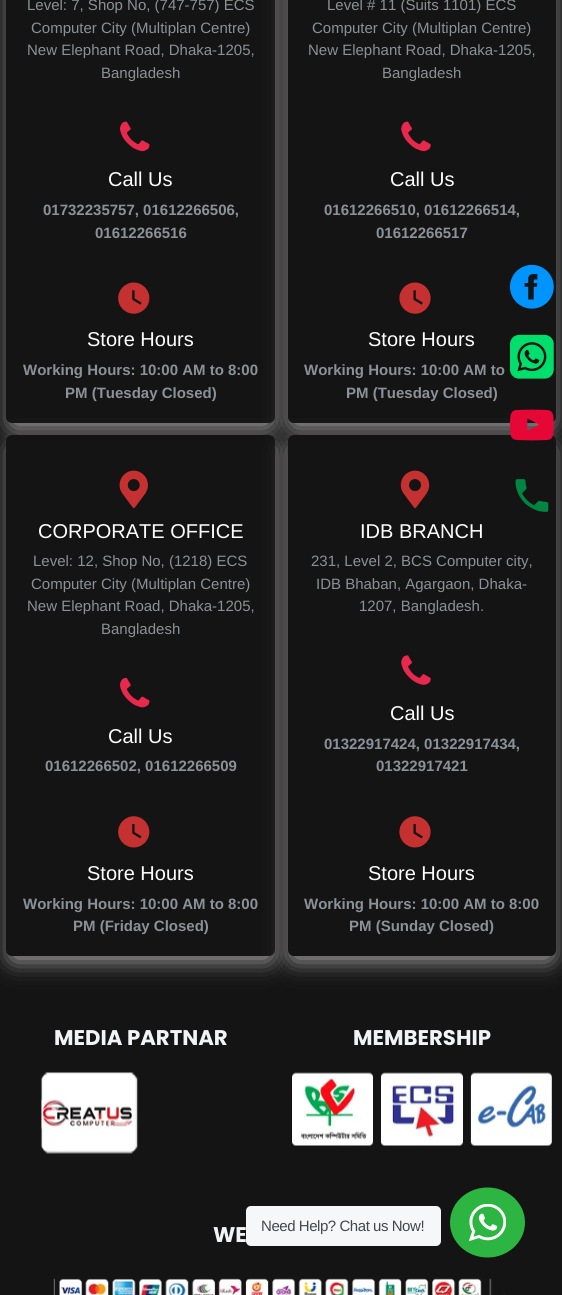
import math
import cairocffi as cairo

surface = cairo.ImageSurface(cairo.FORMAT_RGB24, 562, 1295)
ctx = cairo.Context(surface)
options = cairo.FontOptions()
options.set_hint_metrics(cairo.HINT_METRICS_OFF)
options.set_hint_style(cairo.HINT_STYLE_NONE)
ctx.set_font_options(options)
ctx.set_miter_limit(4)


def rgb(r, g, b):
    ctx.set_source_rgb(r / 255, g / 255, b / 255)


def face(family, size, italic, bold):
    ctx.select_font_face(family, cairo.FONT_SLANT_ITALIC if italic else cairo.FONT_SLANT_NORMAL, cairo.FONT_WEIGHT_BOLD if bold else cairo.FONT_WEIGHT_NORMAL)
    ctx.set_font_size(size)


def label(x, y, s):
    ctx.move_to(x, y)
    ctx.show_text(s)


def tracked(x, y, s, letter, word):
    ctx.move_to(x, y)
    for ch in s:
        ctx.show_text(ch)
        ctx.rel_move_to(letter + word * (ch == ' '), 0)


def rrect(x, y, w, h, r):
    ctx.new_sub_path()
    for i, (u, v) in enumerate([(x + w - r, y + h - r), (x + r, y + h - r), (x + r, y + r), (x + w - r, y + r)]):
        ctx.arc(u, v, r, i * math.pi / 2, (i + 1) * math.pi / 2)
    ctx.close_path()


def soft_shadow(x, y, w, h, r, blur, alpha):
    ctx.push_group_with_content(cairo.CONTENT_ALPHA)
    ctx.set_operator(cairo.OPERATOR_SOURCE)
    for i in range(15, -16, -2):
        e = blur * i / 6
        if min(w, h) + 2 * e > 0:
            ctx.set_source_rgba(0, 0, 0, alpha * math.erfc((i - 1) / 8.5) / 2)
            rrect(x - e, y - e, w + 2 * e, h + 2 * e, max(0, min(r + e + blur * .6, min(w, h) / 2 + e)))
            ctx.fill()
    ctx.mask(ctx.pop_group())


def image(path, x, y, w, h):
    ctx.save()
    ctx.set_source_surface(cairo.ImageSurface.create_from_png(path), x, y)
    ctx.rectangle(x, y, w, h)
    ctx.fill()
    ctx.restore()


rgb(20, 20, 20)
ctx.paint()
rgb(198, 194, 194)
soft_shadow(13, -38, 256, 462, 0, 12.5, 1)
rgb(20, 20, 20)
rrect(6, -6, 269, 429, 6)
ctx.fill()
face('Liberation Sans', 15, 0, 0)
rgb(139, 145, 152)
label(27, 10, 'Level: 7, Shop No, (747-757) ECS')
label(31, 33, 'Computer City (Multiplan Centre)')
label(27, 55, 'New Elephant Road, Dhaka-1205,')
label(101, 78, 'Bangladesh')
image('image0.png', 120, 121, 30, 31)
face('Liberation Sans', 20, 0, 0)
rgb(255, 255, 255)
label(108, 186, 'Call Us')
face('Liberation Sans', 15, 0, 1)
rgb(139, 145, 152)
label(43, 215, '01732235757, 01612266506,')
label(95, 238, '01612266516')
image('image1.png', 118, 282, 32, 32)
face('Liberation Sans', 20, 0, 0)
rgb(255, 255, 255)
label(87, 346, 'Store Hours')
face('Liberation Sans', 15, 0, 1)
rgb(139, 145, 152)
label(23, 375, 'Working Hours: 10:00 AM to 8:00')
label(65, 398, 'PM (Tuesday Closed)')
rgb(198, 194, 194)
soft_shadow(294, -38, 256, 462, 0, 12.5, 1)
rgb(20, 20, 20)
rrect(288, -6, 268, 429, 6)
ctx.fill()
face('Liberation Sans', 15, 0, 0)
rgb(139, 145, 152)
label(327, 10, 'Level # 11 (Suits 1101) ECS')
label(312, 33, 'Computer City (Multiplan Centre)')
label(308, 55, 'New Elephant Road, Dhaka-1205,')
label(382, 78, 'Bangladesh')
image('image2.png', 401, 121, 30, 31)
face('Liberation Sans', 20, 0, 0)
rgb(255, 255, 255)
label(390, 186, 'Call Us')
face('Liberation Sans', 15, 0, 1)
rgb(139, 145, 152)
label(324, 215, '01612266510, 01612266514,')
label(376, 238, '01612266517')
image('image3.png', 399, 282, 32, 32)
face('Liberation Sans', 20, 0, 0)
rgb(255, 255, 255)
label(368, 346, 'Store Hours')
face('Liberation Sans', 15, 0, 1)
rgb(139, 145, 152)
label(304, 375, 'Working Hours: 10:00 AM to')
label(346, 398, 'PM (Tuesday Closed)')
rgb(198, 194, 194)
soft_shadow(13, 449, 256, 509, 0, 12.5, 1)
rgb(20, 20, 20)
rrect(6, 435, 269, 521, 6)
ctx.fill()
image('image4.png', 119, 470, 29, 39)
face('Liberation Sans', 20, 0, 0)
rgb(255, 255, 255)
label(38, 538, 'CORPORATE OFFICE')
face('Liberation Sans', 15, 0, 0)
rgb(139, 145, 152)
label(33, 566, 'Level: 12, Shop No, (1218) ECS')
label(31, 589, 'Computer City (Multiplan Centre)')
label(27, 611, 'New Elephant Road, Dhaka-1205,')
label(101, 634, 'Bangladesh')
image('image5.png', 120, 677, 30, 31)
face('Liberation Sans', 20, 0, 0)
rgb(255, 255, 255)
label(108, 743, 'Call Us')
face('Liberation Sans', 15, 0, 1)
rgb(139, 145, 152)
label(45, 771, '01612266502, 01612266509')
image('image6.png', 118, 816, 32, 32)
face('Liberation Sans', 20, 0, 0)
rgb(255, 255, 255)
label(87, 880, 'Store Hours')
face('Liberation Sans', 15, 0, 1)
rgb(139, 145, 152)
label(23, 909, 'Working Hours: 10:00 AM to 8:00')
label(73, 931, 'PM (Friday Closed)')
rgb(198, 194, 194)
soft_shadow(294, 449, 256, 509, 0, 12.5, 1)
rgb(20, 20, 20)
rrect(288, 435, 268, 521, 6)
ctx.fill()
image('image7.png', 400, 470, 30, 39)
face('Liberation Sans', 20, 0, 0)
rgb(255, 255, 255)
label(360, 538, 'IDB BRANCH')
face('Liberation Sans', 15, 0, 0)
rgb(139, 145, 152)
label(311, 566, '231, Level 2, BCS Computer city,')
label(316, 589, 'IDB Bhaban, Agargaon, Dhaka-')
label(359, 611, '1207, Bangladesh.')
image('image8.png', 401, 655, 30, 30)
face('Liberation Sans', 20, 0, 0)
rgb(255, 255, 255)
label(390, 720, 'Call Us')
face('Liberation Sans', 15, 0, 1)
rgb(139, 145, 152)
label(324, 749, '01322917424, 01322917434,')
label(376, 771, '01322917421')
image('image9.png', 399, 816, 32, 32)
face('Liberation Sans', 20, 0, 0)
rgb(255, 255, 255)
label(368, 880, 'Store Hours')
face('Liberation Sans', 15, 0, 1)
rgb(139, 145, 152)
label(304, 909, 'Working Hours: 10:00 AM to 8:00')
label(349, 931, 'PM (Sunday Closed)')
face('Poppins', 21.25, 0, 1)
rgb(242, 243, 247)
label(54, 1045, 'MEDIA PARTNAR')
image('image10.png', 41, 1072, 97, 82)
label(353, 1045, 'MEMBERSHIP')
image('image11.png', 291, 1072, 82, 75)
image('image12.png', 380, 1072, 83, 75)
image('image13.png', 470, 1072, 82, 75)
label(213, 1242, 'WE')
image('image14.png', 53, 1278, 452, 17)
image('image15.png', 510, 264, 44, 45)
image('image16.png', 510, 334, 44, 45)
image('image17.png', 510, 409, 44, 32)
image('image18.png', 515, 479, 34, 33)
rgb(245, 247, 249)
rrect(246, 1206, 195, 40, 5)
ctx.fill()
face('Liberation Sans', 15, 0, 0)
rgb(67, 71, 78)
tracked(261, 1231, 'Need Help? Chat us Now!', -0.45, 0)
rgb(45, 181, 65)
ctx.new_path()
ctx.move_to(487.5, 1187.5)
ctx.curve_to(508, 1187.5, 525, 1203, 525, 1222.5)
ctx.curve_to(525, 1242, 508, 1257.5, 487.5, 1257.5)
ctx.curve_to(467, 1257.5, 450, 1242, 450, 1222.5)
ctx.curve_to(450, 1203, 467, 1187.5, 487.5, 1187.5)
ctx.close_path()
ctx.fill()
image('image19.png', 469, 1204, 37, 37)
surface.write_to_png('render.png')
